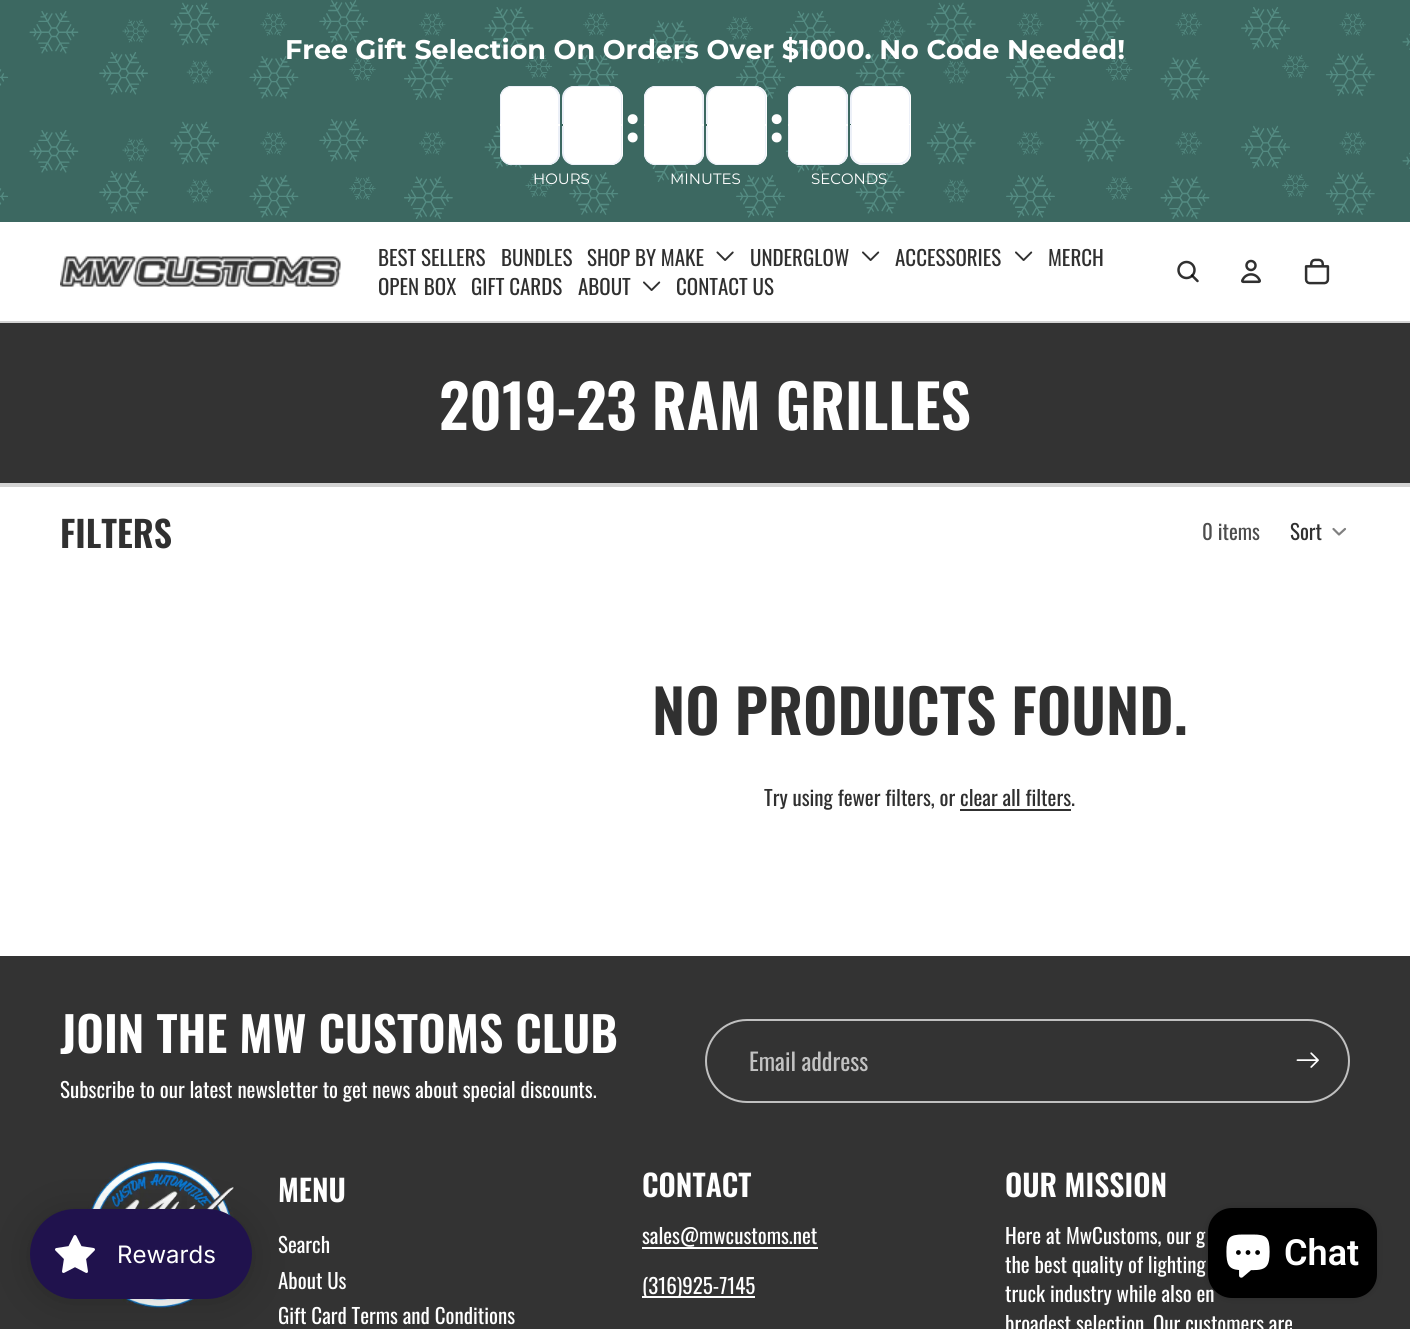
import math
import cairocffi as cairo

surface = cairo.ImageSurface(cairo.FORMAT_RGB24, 1410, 1329)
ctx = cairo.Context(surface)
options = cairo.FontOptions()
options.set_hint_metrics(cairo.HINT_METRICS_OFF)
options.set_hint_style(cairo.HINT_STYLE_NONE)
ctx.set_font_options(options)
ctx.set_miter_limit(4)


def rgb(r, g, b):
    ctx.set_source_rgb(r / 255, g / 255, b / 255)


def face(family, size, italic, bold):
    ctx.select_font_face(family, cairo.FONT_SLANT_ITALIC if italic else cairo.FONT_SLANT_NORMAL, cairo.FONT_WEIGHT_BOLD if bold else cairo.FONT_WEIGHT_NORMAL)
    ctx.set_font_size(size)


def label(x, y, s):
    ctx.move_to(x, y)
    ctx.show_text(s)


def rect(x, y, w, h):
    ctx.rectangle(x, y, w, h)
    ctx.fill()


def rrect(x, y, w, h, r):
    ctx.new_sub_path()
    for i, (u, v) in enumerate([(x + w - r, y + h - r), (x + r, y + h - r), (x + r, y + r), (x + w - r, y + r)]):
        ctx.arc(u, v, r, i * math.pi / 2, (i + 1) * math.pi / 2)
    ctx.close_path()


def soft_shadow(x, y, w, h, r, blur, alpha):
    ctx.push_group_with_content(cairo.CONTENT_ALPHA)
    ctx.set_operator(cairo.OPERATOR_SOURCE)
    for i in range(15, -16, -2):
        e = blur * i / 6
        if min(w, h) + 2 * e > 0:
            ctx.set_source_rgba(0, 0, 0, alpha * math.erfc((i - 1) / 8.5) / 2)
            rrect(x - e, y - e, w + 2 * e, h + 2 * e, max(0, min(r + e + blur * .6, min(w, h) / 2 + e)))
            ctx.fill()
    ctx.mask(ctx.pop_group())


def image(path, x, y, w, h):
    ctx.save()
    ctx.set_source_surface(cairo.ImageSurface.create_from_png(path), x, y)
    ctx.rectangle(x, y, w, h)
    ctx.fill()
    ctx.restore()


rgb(255, 255, 255)
ctx.paint()
rgb(60, 104, 97)
rect(0, 0, 1410, 222)
image('image0.png', 0, 0, 1410, 219)
face('Montserrat Thin', 27, 0, 0)
rgb(255, 255, 255)
label(285, 59, 'Free Gift Selection On Orders Over $1000. No Code Needed!')
face('Montserrat Thin', 51, 0, 0)
label(626, 142, ':')
label(770, 142, ':')
rrect(500, 86, 60, 79, 12)
ctx.fill()
ctx.new_path()
ctx.move_to(512, 86)
ctx.line_to(548, 86)
ctx.curve_to(554.5, 86, 560, 91.5, 560, 98)
ctx.line_to(560, 125)
ctx.line_to(500, 125)
ctx.line_to(500, 98)
ctx.curve_to(500, 91.5, 505.5, 86, 512, 86)
ctx.close_path()
ctx.fill()
rgb(236, 240, 248)
ctx.set_fill_rule(cairo.FILL_RULE_EVEN_ODD)
ctx.new_path()
ctx.move_to(512, 86)
ctx.line_to(548, 86)
ctx.curve_to(554, 86, 560, 91, 560, 98)
ctx.line_to(560, 124)
ctx.line_to(500, 124)
ctx.line_to(500, 98)
ctx.curve_to(500, 91, 505, 86, 512, 86)
ctx.close_path()
ctx.move_to(512, 87)
ctx.line_to(548, 87)
ctx.curve_to(553, 87, 558, 92, 558, 98)
ctx.line_to(558, 124)
ctx.line_to(501, 124)
ctx.line_to(501, 98)
ctx.curve_to(501, 92, 506, 87, 512, 87)
ctx.close_path()
ctx.fill()
rgb(255, 255, 255)
ctx.new_path()
ctx.move_to(500, 126)
ctx.line_to(560, 126)
ctx.line_to(560, 153)
ctx.curve_to(560, 159.5, 554.5, 165, 548, 165)
ctx.line_to(512, 165)
ctx.curve_to(505.5, 165, 500, 159.5, 500, 153)
ctx.close_path()
ctx.fill()
rgb(236, 240, 248)
ctx.new_path()
ctx.move_to(500, 126)
ctx.line_to(560, 126)
ctx.line_to(560, 153)
ctx.curve_to(560, 160, 554, 165, 548, 165)
ctx.line_to(512, 165)
ctx.curve_to(505, 165, 500, 160, 500, 153)
ctx.close_path()
ctx.move_to(501, 126)
ctx.line_to(558, 126)
ctx.line_to(558, 153)
ctx.curve_to(558, 159, 553, 164, 548, 164)
ctx.line_to(512, 164)
ctx.curve_to(506, 164, 501, 159, 501, 153)
ctx.close_path()
ctx.fill()
rgb(255, 255, 255)
rrect(563, 86, 60, 79, 12)
ctx.fill()
ctx.new_path()
ctx.move_to(575, 86)
ctx.line_to(611, 86)
ctx.curve_to(617.5, 86, 623, 91.5, 623, 98)
ctx.line_to(623, 125)
ctx.line_to(563, 125)
ctx.line_to(563, 98)
ctx.curve_to(563, 91.5, 568.5, 86, 575, 86)
ctx.close_path()
ctx.fill()
rgb(236, 240, 248)
ctx.new_path()
ctx.move_to(574, 86)
ctx.line_to(610, 86)
ctx.curve_to(617, 86, 622, 91, 622, 98)
ctx.line_to(622, 124)
ctx.line_to(562, 124)
ctx.line_to(562, 98)
ctx.curve_to(562, 91, 568, 86, 574, 86)
ctx.close_path()
ctx.move_to(574, 87)
ctx.line_to(610, 87)
ctx.curve_to(616, 87, 621, 92, 621, 98)
ctx.line_to(621, 124)
ctx.line_to(564, 124)
ctx.line_to(564, 98)
ctx.curve_to(564, 92, 569, 87, 574, 87)
ctx.close_path()
ctx.fill()
rgb(255, 255, 255)
ctx.new_path()
ctx.move_to(563, 126)
ctx.line_to(623, 126)
ctx.line_to(623, 153)
ctx.curve_to(623, 159.5, 617.5, 165, 611, 165)
ctx.line_to(575, 165)
ctx.curve_to(568.5, 165, 563, 159.5, 563, 153)
ctx.close_path()
ctx.fill()
rgb(236, 240, 248)
ctx.new_path()
ctx.move_to(562, 126)
ctx.line_to(622, 126)
ctx.line_to(622, 153)
ctx.curve_to(622, 160, 617, 165, 610, 165)
ctx.line_to(574, 165)
ctx.curve_to(568, 165, 562, 160, 562, 153)
ctx.close_path()
ctx.move_to(564, 126)
ctx.line_to(621, 126)
ctx.line_to(621, 153)
ctx.curve_to(621, 159, 616, 164, 610, 164)
ctx.line_to(574, 164)
ctx.curve_to(569, 164, 564, 159, 564, 153)
ctx.close_path()
ctx.fill()
face('Montserrat', 15, 0, 0)
rgb(255, 255, 255)
label(533, 184, 'HOURS')
rrect(644, 86, 60, 79, 12)
ctx.fill()
ctx.new_path()
ctx.move_to(656, 86)
ctx.line_to(692, 86)
ctx.curve_to(698.5, 86, 704, 91.5, 704, 98)
ctx.line_to(704, 125)
ctx.line_to(644, 125)
ctx.line_to(644, 98)
ctx.curve_to(644, 91.5, 649.5, 86, 656, 86)
ctx.close_path()
ctx.fill()
rgb(236, 240, 248)
ctx.new_path()
ctx.move_to(656, 86)
ctx.line_to(692, 86)
ctx.curve_to(698, 86, 704, 91, 704, 98)
ctx.line_to(704, 124)
ctx.line_to(644, 124)
ctx.line_to(644, 98)
ctx.curve_to(644, 91, 649, 86, 656, 86)
ctx.close_path()
ctx.move_to(656, 87)
ctx.line_to(692, 87)
ctx.curve_to(697, 87, 702, 92, 702, 98)
ctx.line_to(702, 124)
ctx.line_to(645, 124)
ctx.line_to(645, 98)
ctx.curve_to(645, 92, 650, 87, 656, 87)
ctx.close_path()
ctx.fill()
rgb(255, 255, 255)
ctx.new_path()
ctx.move_to(644, 126)
ctx.line_to(704, 126)
ctx.line_to(704, 153)
ctx.curve_to(704, 159.5, 698.5, 165, 692, 165)
ctx.line_to(656, 165)
ctx.curve_to(649.5, 165, 644, 159.5, 644, 153)
ctx.close_path()
ctx.fill()
rgb(236, 240, 248)
ctx.new_path()
ctx.move_to(644, 126)
ctx.line_to(704, 126)
ctx.line_to(704, 153)
ctx.curve_to(704, 160, 698, 165, 692, 165)
ctx.line_to(656, 165)
ctx.curve_to(649, 165, 644, 160, 644, 153)
ctx.close_path()
ctx.move_to(645, 126)
ctx.line_to(702, 126)
ctx.line_to(702, 153)
ctx.curve_to(702, 159, 697, 164, 692, 164)
ctx.line_to(656, 164)
ctx.curve_to(650, 164, 645, 159, 645, 153)
ctx.close_path()
ctx.fill()
rgb(255, 255, 255)
rrect(707, 86, 60, 79, 12)
ctx.fill()
ctx.new_path()
ctx.move_to(719, 86)
ctx.line_to(755, 86)
ctx.curve_to(761.5, 86, 767, 91.5, 767, 98)
ctx.line_to(767, 125)
ctx.line_to(707, 125)
ctx.line_to(707, 98)
ctx.curve_to(707, 91.5, 712.5, 86, 719, 86)
ctx.close_path()
ctx.fill()
rgb(236, 240, 248)
ctx.new_path()
ctx.move_to(718, 86)
ctx.line_to(754, 86)
ctx.curve_to(761, 86, 766, 91, 766, 98)
ctx.line_to(766, 124)
ctx.line_to(706, 124)
ctx.line_to(706, 98)
ctx.curve_to(706, 91, 712, 86, 718, 86)
ctx.close_path()
ctx.move_to(718, 87)
ctx.line_to(754, 87)
ctx.curve_to(760, 87, 765, 92, 765, 98)
ctx.line_to(765, 124)
ctx.line_to(708, 124)
ctx.line_to(708, 98)
ctx.curve_to(708, 92, 713, 87, 718, 87)
ctx.close_path()
ctx.fill()
rgb(255, 255, 255)
ctx.new_path()
ctx.move_to(707, 126)
ctx.line_to(767, 126)
ctx.line_to(767, 153)
ctx.curve_to(767, 159.5, 761.5, 165, 755, 165)
ctx.line_to(719, 165)
ctx.curve_to(712.5, 165, 707, 159.5, 707, 153)
ctx.close_path()
ctx.fill()
rgb(236, 240, 248)
ctx.new_path()
ctx.move_to(706, 126)
ctx.line_to(766, 126)
ctx.line_to(766, 153)
ctx.curve_to(766, 160, 761, 165, 754, 165)
ctx.line_to(718, 165)
ctx.curve_to(712, 165, 706, 160, 706, 153)
ctx.close_path()
ctx.move_to(708, 126)
ctx.line_to(765, 126)
ctx.line_to(765, 153)
ctx.curve_to(765, 159, 760, 164, 754, 164)
ctx.line_to(718, 164)
ctx.curve_to(713, 164, 708, 159, 708, 153)
ctx.close_path()
ctx.fill()
rgb(255, 255, 255)
label(670, 184, 'MINUTES')
rrect(788, 86, 60, 79, 12)
ctx.fill()
ctx.new_path()
ctx.move_to(800, 86)
ctx.line_to(836, 86)
ctx.curve_to(842.5, 86, 848, 91.5, 848, 98)
ctx.line_to(848, 125)
ctx.line_to(788, 125)
ctx.line_to(788, 98)
ctx.curve_to(788, 91.5, 793.5, 86, 800, 86)
ctx.close_path()
ctx.fill()
rgb(236, 240, 248)
ctx.new_path()
ctx.move_to(800, 86)
ctx.line_to(836, 86)
ctx.curve_to(842, 86, 848, 91, 848, 98)
ctx.line_to(848, 124)
ctx.line_to(788, 124)
ctx.line_to(788, 98)
ctx.curve_to(788, 91, 793, 86, 800, 86)
ctx.close_path()
ctx.move_to(800, 87)
ctx.line_to(836, 87)
ctx.curve_to(841, 87, 846, 92, 846, 98)
ctx.line_to(846, 124)
ctx.line_to(789, 124)
ctx.line_to(789, 98)
ctx.curve_to(789, 92, 794, 87, 800, 87)
ctx.close_path()
ctx.fill()
rgb(255, 255, 255)
ctx.new_path()
ctx.move_to(788, 126)
ctx.line_to(848, 126)
ctx.line_to(848, 153)
ctx.curve_to(848, 159.5, 842.5, 165, 836, 165)
ctx.line_to(800, 165)
ctx.curve_to(793.5, 165, 788, 159.5, 788, 153)
ctx.close_path()
ctx.fill()
rgb(236, 240, 248)
ctx.new_path()
ctx.move_to(788, 126)
ctx.line_to(848, 126)
ctx.line_to(848, 153)
ctx.curve_to(848, 160, 842, 165, 836, 165)
ctx.line_to(800, 165)
ctx.curve_to(793, 165, 788, 160, 788, 153)
ctx.close_path()
ctx.move_to(789, 126)
ctx.line_to(846, 126)
ctx.line_to(846, 153)
ctx.curve_to(846, 159, 841, 164, 836, 164)
ctx.line_to(800, 164)
ctx.curve_to(794, 164, 789, 159, 789, 153)
ctx.close_path()
ctx.fill()
rgb(255, 255, 255)
rrect(851, 86, 60, 79, 12)
ctx.fill()
ctx.new_path()
ctx.move_to(863, 86)
ctx.line_to(899, 86)
ctx.curve_to(905.5, 86, 911, 91.5, 911, 98)
ctx.line_to(911, 125)
ctx.line_to(851, 125)
ctx.line_to(851, 98)
ctx.curve_to(851, 91.5, 856.5, 86, 863, 86)
ctx.close_path()
ctx.fill()
rgb(236, 240, 248)
ctx.new_path()
ctx.move_to(862, 86)
ctx.line_to(898, 86)
ctx.curve_to(905, 86, 910, 91, 910, 98)
ctx.line_to(910, 124)
ctx.line_to(850, 124)
ctx.line_to(850, 98)
ctx.curve_to(850, 91, 856, 86, 862, 86)
ctx.close_path()
ctx.move_to(862, 87)
ctx.line_to(898, 87)
ctx.curve_to(904, 87, 909, 92, 909, 98)
ctx.line_to(909, 124)
ctx.line_to(852, 124)
ctx.line_to(852, 98)
ctx.curve_to(852, 92, 857, 87, 862, 87)
ctx.close_path()
ctx.fill()
rgb(255, 255, 255)
ctx.new_path()
ctx.move_to(851, 126)
ctx.line_to(911, 126)
ctx.line_to(911, 153)
ctx.curve_to(911, 159.5, 905.5, 165, 899, 165)
ctx.line_to(863, 165)
ctx.curve_to(856.5, 165, 851, 159.5, 851, 153)
ctx.close_path()
ctx.fill()
rgb(236, 240, 248)
ctx.new_path()
ctx.move_to(850, 126)
ctx.line_to(910, 126)
ctx.line_to(910, 153)
ctx.curve_to(910, 160, 905, 165, 898, 165)
ctx.line_to(862, 165)
ctx.curve_to(856, 165, 850, 160, 850, 153)
ctx.close_path()
ctx.move_to(852, 126)
ctx.line_to(909, 126)
ctx.line_to(909, 153)
ctx.curve_to(909, 159, 904, 164, 898, 164)
ctx.line_to(862, 164)
ctx.curve_to(857, 164, 852, 159, 852, 153)
ctx.close_path()
ctx.fill()
rgb(255, 255, 255)
ctx.set_fill_rule(cairo.FILL_RULE_WINDING)
ctx.new_path()
ctx.move_to(862, 164)
ctx.line_to(898, 164)
ctx.curve_to(905, 164, 910, 159, 910, 152)
ctx.line_to(910, 125)
ctx.line_to(850, 125)
ctx.line_to(850, 152)
ctx.curve_to(850, 159, 856, 164, 862, 164)
ctx.close_path()
ctx.fill()
rgb(236, 240, 248)
ctx.set_fill_rule(cairo.FILL_RULE_EVEN_ODD)
ctx.new_path()
ctx.move_to(862, 164)
ctx.line_to(898, 164)
ctx.curve_to(905, 164, 910, 159, 910, 152)
ctx.line_to(910, 125)
ctx.line_to(850, 125)
ctx.line_to(850, 152)
ctx.curve_to(850, 159, 856, 164, 862, 164)
ctx.close_path()
ctx.move_to(862, 163)
ctx.line_to(898, 163)
ctx.curve_to(904, 163, 909, 158, 909, 152)
ctx.line_to(909, 125)
ctx.line_to(852, 125)
ctx.line_to(852, 152)
ctx.curve_to(852, 158, 857, 163, 862, 163)
ctx.close_path()
ctx.fill()
rgb(255, 255, 255)
label(811, 184, 'SECONDS')
rgb(211, 211, 211)
rect(0, 321, 1410, 2)
image('image1.png', 60, 256, 281, 31)
face('Oswald', 21, 0, 0)
rgb(48, 48, 48)
label(378, 266, 'BEST SELLERS')
label(501, 266, 'BUNDLES')
label(587, 266, 'SHOP BY MAKE')
image('image2.png', 716, 251, 18, 10)
label(750, 266, 'UNDERGLOW')
image('image3.png', 862, 251, 18, 10)
label(895, 266, 'ACCESSORIES')
image('image3.png', 1015, 251, 18, 10)
label(1048, 266, 'MERCH')
label(378, 295, 'OPEN BOX')
label(471, 295, 'GIFT CARDS')
label(578, 295, 'ABOUT')
image('image3.png', 643, 281, 18, 10)
label(676, 295, 'CONTACT US')
ctx.new_path()
ctx.arc(1186.5, 270, 8, 0, 2 * math.pi)
ctx.set_line_width(2.5)
ctx.stroke()
ctx.new_path()
ctx.move_to(1192, 275.5)
ctx.line_to(1197.5, 281)
ctx.set_source_rgba(0, 0, 0, 0.81)
ctx.set_line_cap(cairo.LINE_CAP_ROUND)
ctx.set_line_join(cairo.LINE_JOIN_ROUND)
ctx.stroke()
image('image4.png', 1241, 259, 20, 25)
image('image5.png', 1304, 258, 26, 27)
rgb(51, 51, 51)
rect(0, 323, 1410, 160)
face('Oswald SemiBold', 60, 0, 0)
rgb(255, 255, 255)
label(439, 430, '2019-23 RAM GRILLES')
rgb(211, 211, 211)
rect(0, 483, 1410, 4)
face('Oswald SemiBold', 36, 0, 0)
rgb(48, 48, 48)
label(60, 548, 'FILTERS')
face('Oswald', 21, 0, 0)
rgb(77, 77, 77)
label(1202, 540, '0 items')
rgb(48, 48, 48)
label(1290, 540, 'Sort')
ctx.new_path()
ctx.move_to(1345, 529)
ctx.line_to(1339, 534.5)
ctx.line_to(1333.5, 529)
rgb(128, 128, 128)
ctx.set_line_width(2.2)
ctx.stroke()
face('Oswald SemiBold', 60, 0, 0)
rgb(48, 48, 48)
label(652, 735, 'NO PRODUCTS FOUND.')
face('Oswald', 21, 0, 0)
label(764, 806, 'Try using fewer filters, or clear all filters.')
rect(960, 809, 111, 2)
rgb(51, 51, 51)
rect(0, 956, 1410, 373)
face('Oswald SemiBold', 48, 0, 0)
rgb(255, 255, 255)
label(60, 1053, 'JOIN THE MW CUSTOMS CLUB')
face('Oswald', 21, 0, 0)
label(60, 1098, 'Subscribe to our latest newsletter to get news about special discounts.')
rrect(706, 1020, 643, 82, 41)
rgb(192, 192, 192)
ctx.set_line_width(2)
ctx.set_line_cap(cairo.LINE_CAP_BUTT)
ctx.set_line_join(cairo.LINE_JOIN_MITER)
ctx.stroke()
face('Oswald', 24, 0, 0)
rgb(194, 194, 194)
label(749, 1071, 'Email address')
image('image6.png', 1296, 1052, 23, 16)
image('image7.png', 87, 1160, 149, 149)
face('Oswald SemiBold', 30, 0, 0)
rgb(255, 255, 255)
label(278, 1202, 'MENU')
face('Oswald', 21, 0, 0)
label(278, 1253, 'Search')
label(278, 1289, 'About Us')
label(278, 1324, 'Gift Card Terms and Conditions')
face('Oswald SemiBold', 30, 0, 0)
label(642, 1197, 'CONTACT')
face('Oswald', 21, 0, 0)
label(642, 1244, 'sales@mwcustoms.net')
rect(642, 1247, 176, 2)
rect(642, 1296, 113, 2)
label(642, 1294, '(316)925-7145')
face('Oswald SemiBold', 30, 0, 0)
label(1005, 1197, 'OUR MISSION')
face('Oswald', 21, 0, 0)
label(1005, 1244, 'Here at MwCustoms, our g')
label(1005, 1273, 'the best quality of lighting')
label(1005, 1302, 'truck industry while also en')
label(1005, 1332, 'broadest selection. Our customers are')
rgb(0, 0, 0)
soft_shadow(1208, 1208, 169, 90, 24, 4, 0.15)
rgb(0, 0, 0)
rrect(1208, 1208, 169, 90, 24)
ctx.fill()
image('image8.png', 1226, 1234, 44, 44)
face('Roboto SemiBold', 36, 0, 0)
rgb(255, 255, 255)
label(1284, 1265, 'Chat')
rgb(0, 0, 0)
soft_shadow(30, 1212, 222, 90, 45, 22.5, 0.15)
soft_shadow(30, 1211, 222, 90, 45, 4.5, 0.05)
rgb(32, 18, 77)
rrect(30, 1209, 222, 90, 45)
ctx.fill()
image('image9.png', 55, 1235, 40, 38)
face('Inter', 24, 0, 0)
rgb(255, 255, 255)
label(117, 1263, 'Rewards')
surface.write_to_png('render.png')
